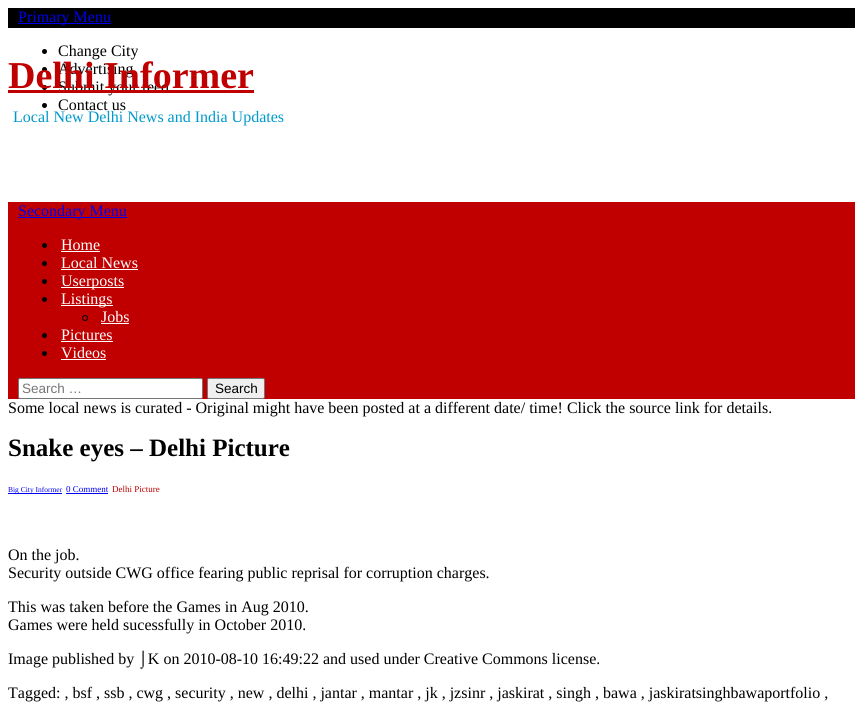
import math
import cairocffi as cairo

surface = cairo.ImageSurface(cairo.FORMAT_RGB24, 863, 704)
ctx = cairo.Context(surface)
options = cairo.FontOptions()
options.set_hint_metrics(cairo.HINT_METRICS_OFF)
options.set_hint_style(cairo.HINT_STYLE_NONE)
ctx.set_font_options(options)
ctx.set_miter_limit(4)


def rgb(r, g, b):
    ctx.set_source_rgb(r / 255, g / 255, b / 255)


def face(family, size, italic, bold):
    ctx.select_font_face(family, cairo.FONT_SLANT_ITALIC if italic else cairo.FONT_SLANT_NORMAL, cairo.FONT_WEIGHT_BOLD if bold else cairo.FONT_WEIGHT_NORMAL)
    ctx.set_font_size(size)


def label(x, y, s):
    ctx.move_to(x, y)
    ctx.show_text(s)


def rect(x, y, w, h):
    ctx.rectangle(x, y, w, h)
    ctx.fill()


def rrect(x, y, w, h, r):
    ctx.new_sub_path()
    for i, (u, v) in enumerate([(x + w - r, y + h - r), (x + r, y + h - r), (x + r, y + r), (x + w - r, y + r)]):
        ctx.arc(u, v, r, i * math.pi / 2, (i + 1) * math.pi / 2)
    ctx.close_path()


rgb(255, 255, 255)
ctx.paint()
rgb(0, 0, 0)
rect(8, 8, 847, 20)
rgb(0, 0, 238)
rect(18, 23, 93, 1)
face('Liberation Serif', 16, 0, 0)
label(18, 22, 'Primary Menu')
rgb(0, 0, 0)
ctx.new_path()
ctx.arc(44.5, 51.5, 2.5, 0, 2 * math.pi)
ctx.fill()
label(58, 56, 'Change City')
ctx.new_path()
ctx.arc(44.5, 69.5, 2.5, 0, 2 * math.pi)
ctx.fill()
label(58, 74, 'Advertising')
ctx.new_path()
ctx.arc(44.5, 87.5, 2.5, 0, 2 * math.pi)
ctx.fill()
label(58, 92, 'Submit your feed')
ctx.new_path()
ctx.arc(44.5, 105.5, 2.5, 0, 2 * math.pi)
ctx.fill()
label(58, 110, 'Contact us')
face('Liberation Serif', 38, 0, 1)
rgb(192, 0, 0)
label(8, 88, 'Delhi Informer')
rect(8, 90, 246, 3)
face('Liberation Serif', 16, 0, 0)
rgb(0, 153, 204)
label(13, 122, 'Local New Delhi News and India Updates')
rgb(192, 0, 0)
rect(8, 202, 847, 197)
rgb(0, 0, 238)
rect(18, 217, 109, 1)
label(18, 216, 'Secondary Menu')
rgb(0, 0, 0)
ctx.new_path()
ctx.arc(44.5, 245.5, 2.5, 0, 2 * math.pi)
ctx.fill()
rgb(255, 255, 255)
label(61, 250, 'Home')
rect(61, 251, 39, 1)
rgb(0, 0, 0)
ctx.new_path()
ctx.arc(44.5, 263.5, 2.5, 0, 2 * math.pi)
ctx.fill()
rgb(255, 255, 255)
label(61, 268, 'Local News')
rect(61, 269, 77, 1)
rgb(0, 0, 0)
ctx.new_path()
ctx.arc(44.5, 281.5, 2.5, 0, 2 * math.pi)
ctx.fill()
rgb(255, 255, 255)
rect(61, 287, 63, 1)
label(61, 286, 'Userposts')
rgb(0, 0, 0)
ctx.new_path()
ctx.arc(44.5, 299.5, 2.5, 0, 2 * math.pi)
ctx.fill()
rgb(255, 255, 255)
rect(61, 305, 52, 1)
label(61, 304, 'Listings')
ctx.new_path()
ctx.arc(85, 318, 2.5, 0, 2 * math.pi)
rgb(0, 0, 0)
ctx.set_line_width(1)
ctx.stroke()
rgb(255, 255, 255)
label(101, 322, 'Jobs')
rect(101, 323, 28, 1)
rgb(0, 0, 0)
ctx.new_path()
ctx.arc(44.5, 335.5, 2.5, 0, 2 * math.pi)
ctx.fill()
rgb(255, 255, 255)
label(61, 340, 'Pictures')
rect(61, 341, 52, 1)
rgb(0, 0, 0)
ctx.new_path()
ctx.arc(44.5, 353.5, 2.5, 0, 2 * math.pi)
ctx.fill()
rgb(255, 255, 255)
label(61, 358, 'Videos')
rect(61, 359, 45, 1)
rrect(18.5, 378.5, 184, 20, 1.5)
ctx.fill_preserve()
rgb(118, 118, 118)
ctx.stroke()
face('Liberation Sans', 13.5, 0, 0)
rgb(117, 117, 117)
label(22, 393, 'Search …')
rgb(239, 239, 239)
rrect(207.5, 378.5, 57, 20, 1.5)
ctx.fill_preserve()
rgb(118, 118, 118)
ctx.stroke()
rgb(0, 0, 0)
label(215, 393, 'Search')
face('Liberation Serif', 16, 0, 0)
label(8, 413, 'Some local news is curated - Original might have been posted at a different date/ time! Click the source link for details.')
face('Liberation Serif', 25, 0, 1)
label(8, 456, 'Snake eyes – Delhi Picture')
rgb(0, 0, 238)
rect(8, 493, 54, 1)
face('Liberation Serif', 7.5, 0, 0)
label(8, 492, 'Big City Informer')
face('Liberation Serif', 9, 0, 0)
label(66, 492, '0 Comment')
rect(66, 493, 42, 1)
rgb(192, 0, 0)
label(112, 492, 'Delhi Picture')
face('Liberation Serif', 16, 0, 0)
rgb(0, 0, 0)
label(8, 560, 'On the job.')
label(8, 578, 'Security outside CWG office fearing public reprisal for corruption charges.')
label(8, 612, 'This was taken before the Games in Aug 2010.')
label(8, 630, 'Games were held sucessfully in October 2010.')
label(8, 664, 'Image published by ⌡K on 2010-08-10 16:49:22 and used under Creative Commons license.')
label(8, 698, 'Tagged: , bsf , ssb , cwg , security , new , delhi , jantar , mantar , jk , jzsinr , jaskirat , singh , bawa , jaskiratsinghbawaportfolio ,')
surface.write_to_png('render.png')
